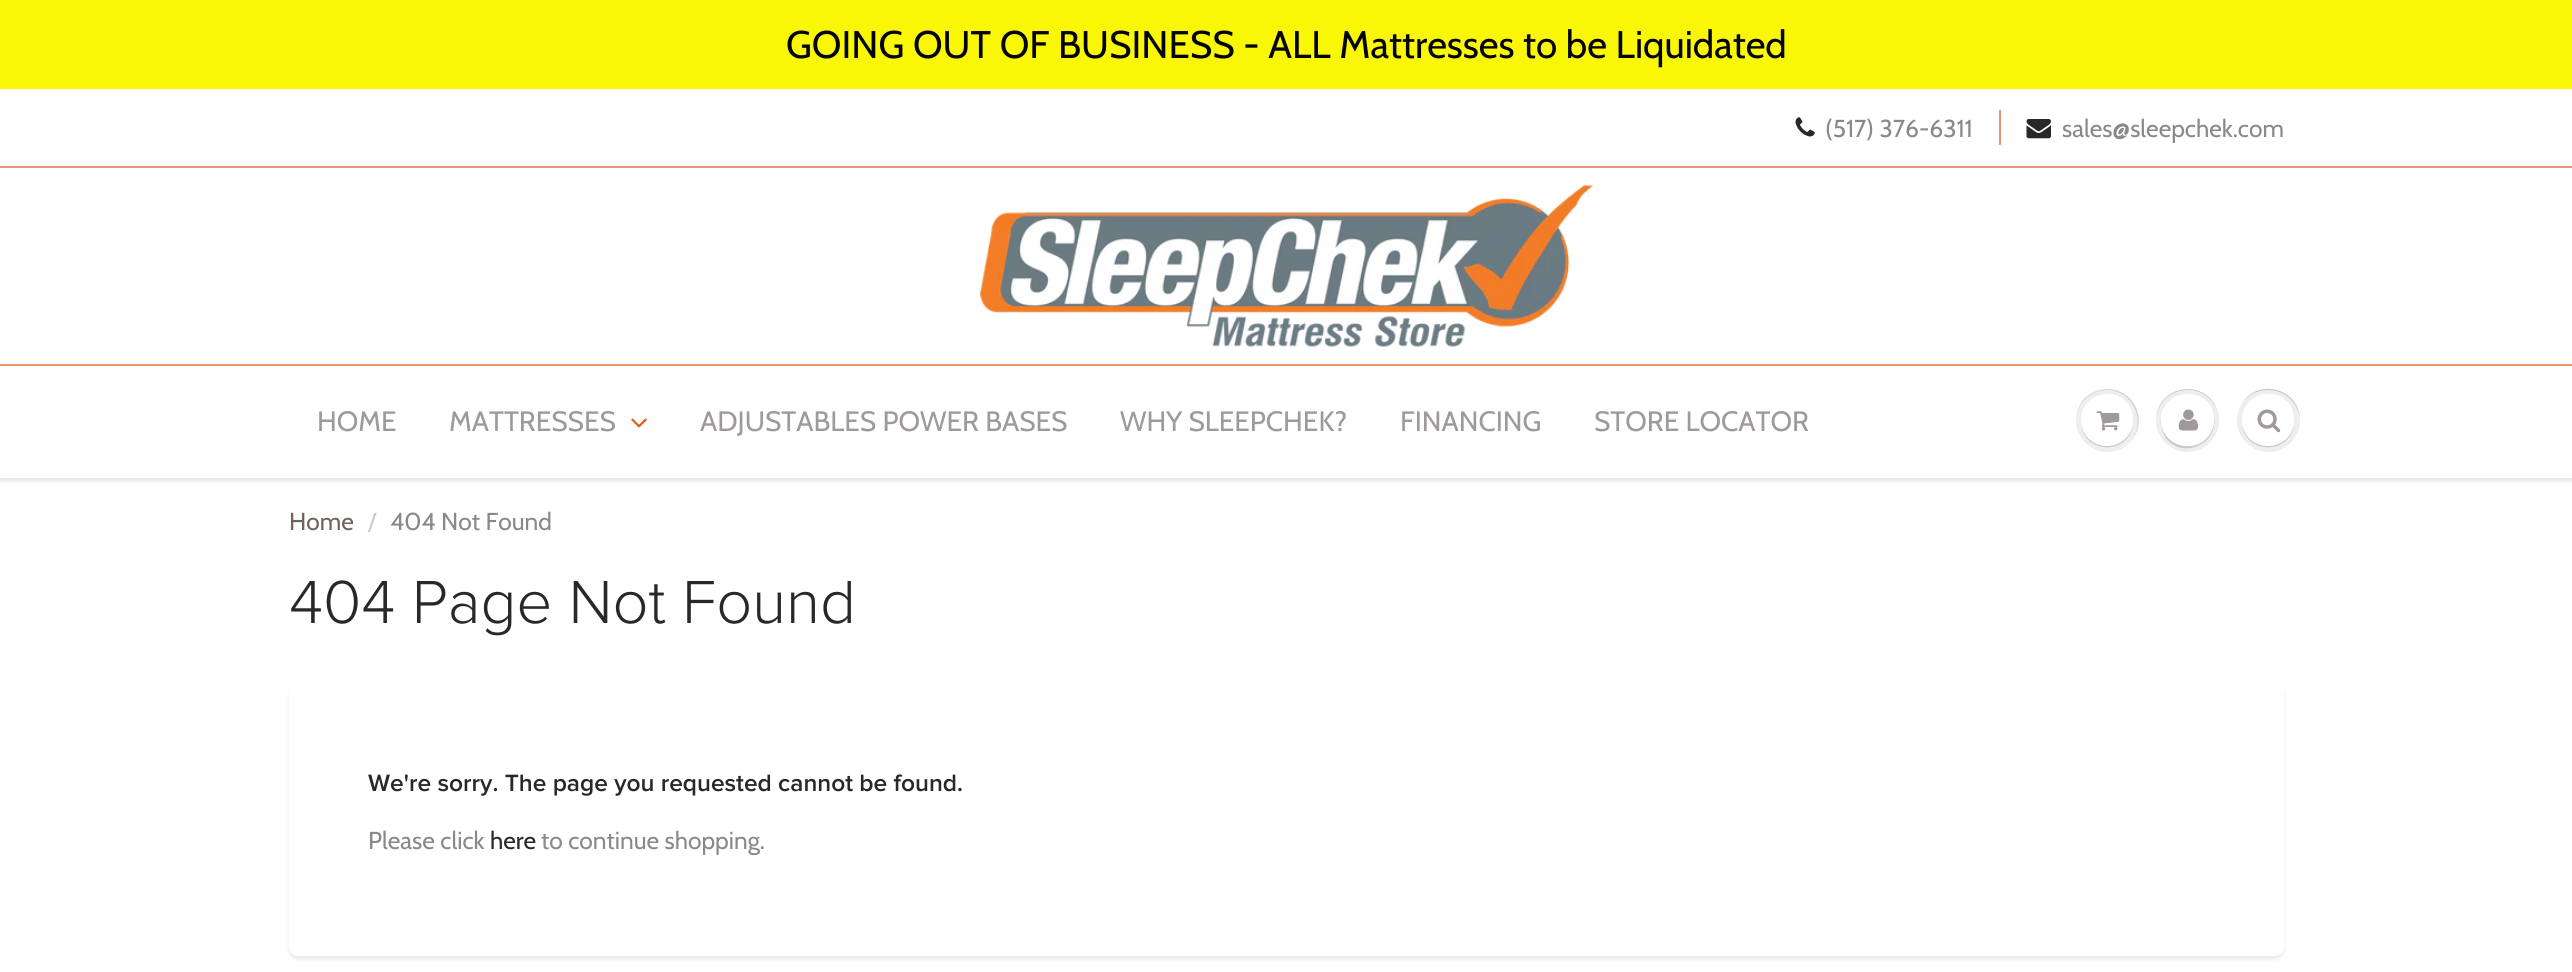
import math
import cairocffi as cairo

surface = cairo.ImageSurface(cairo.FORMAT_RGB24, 2572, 972)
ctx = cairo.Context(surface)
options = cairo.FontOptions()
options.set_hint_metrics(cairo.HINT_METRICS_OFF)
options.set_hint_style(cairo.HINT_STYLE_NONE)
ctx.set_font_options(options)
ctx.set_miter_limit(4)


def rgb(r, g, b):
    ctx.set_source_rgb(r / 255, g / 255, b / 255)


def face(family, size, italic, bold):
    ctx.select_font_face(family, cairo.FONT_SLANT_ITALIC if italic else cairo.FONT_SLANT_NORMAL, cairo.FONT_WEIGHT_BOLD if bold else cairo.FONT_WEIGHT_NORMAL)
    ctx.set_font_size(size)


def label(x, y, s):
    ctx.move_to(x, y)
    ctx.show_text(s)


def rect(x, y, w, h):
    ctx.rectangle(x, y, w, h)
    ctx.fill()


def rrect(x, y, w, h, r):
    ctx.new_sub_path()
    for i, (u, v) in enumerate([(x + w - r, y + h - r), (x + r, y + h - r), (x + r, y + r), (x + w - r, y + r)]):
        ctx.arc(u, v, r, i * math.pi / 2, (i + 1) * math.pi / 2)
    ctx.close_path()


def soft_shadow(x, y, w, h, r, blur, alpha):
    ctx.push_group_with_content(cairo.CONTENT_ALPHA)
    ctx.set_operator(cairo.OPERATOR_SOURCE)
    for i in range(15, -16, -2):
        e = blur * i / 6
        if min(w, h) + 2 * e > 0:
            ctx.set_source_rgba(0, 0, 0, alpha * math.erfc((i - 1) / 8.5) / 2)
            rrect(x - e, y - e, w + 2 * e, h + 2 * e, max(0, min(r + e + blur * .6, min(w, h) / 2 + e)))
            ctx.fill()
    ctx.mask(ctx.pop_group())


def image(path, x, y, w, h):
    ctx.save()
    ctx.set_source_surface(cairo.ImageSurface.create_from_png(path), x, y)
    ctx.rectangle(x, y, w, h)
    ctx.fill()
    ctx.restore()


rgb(255, 255, 255)
ctx.paint()
rgb(250, 247, 6)
rect(0, 0, 2572, 89)
face('Cabin', 38.5, 0, 0)
rgb(3, 3, 3)
label(786, 58, 'GOING OUT OF BUSINESS - ALL Mattresses to be Liquidated')
image('image0.png', 1795, 117, 20, 20)
face('Cabin', 24.5, 0, 0)
rgb(137, 137, 137)
label(1825, 137, '(517) 376-6311')
rgb(231, 151, 111)
rect(1999, 110, 2, 35)
image('image1.png', 2026, 119, 25, 20)
rgb(137, 137, 137)
label(2062, 137, 'sales@sleepchek.com')
rgb(231, 151, 111)
rect(0, 166, 2572, 2)
image('image2.png', 980, 185, 613, 162)
rgb(11, 25, 28)
soft_shadow(0, 368, 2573, 113, 0, 2, 0.12)
rgb(255, 255, 255)
rect(0, 366, 2572, 112)
rgb(231, 151, 111)
rect(0, 364, 2572, 2)
face('Cabin', 28, 0, 0)
rgb(159, 154, 153)
label(317, 431, 'HOME')
label(449, 431, 'MATTRESSES')
image('image3.png', 631, 418, 16, 10)
label(700, 431, 'ADJUSTABLES POWER BASES')
label(1120, 431, 'WHY SLEEPCHEK?')
label(1400, 431, 'FINANCING')
label(1594, 431, 'STORE LOCATOR')
rgb(237, 239, 239)
ctx.new_path()
ctx.arc(2107.5, 420.5, 31.5, 0, 2 * math.pi)
ctx.fill()
rgb(201, 203, 203)
ctx.new_path()
ctx.move_to(2107, 390)
ctx.curve_to(2133, 390, 2147, 421, 2131, 441)
ctx.curve_to(2150, 419, 2131, 384, 2101, 390)
ctx.curve_to(2095, 391, 2090, 394, 2085, 398)
ctx.curve_to(2079, 404, 2076, 413, 2076, 421)
ctx.curve_to(2076, 404, 2090, 390, 2107, 390)
ctx.close_path()
ctx.fill()
ctx.new_path()
ctx.move_to(2133, 424)
ctx.curve_to(2128, 453, 2086, 453, 2081, 424)
ctx.curve_to(2084, 455, 2130, 455, 2133, 424)
ctx.close_path()
ctx.fill()
rgb(255, 255, 255)
ctx.arc(2107, 420, 26, 0, 2 * math.pi)
ctx.fill()
ctx.new_path()
ctx.move_to(2107, 396)
ctx.curve_to(2121, 396, 2132, 407, 2133, 421)
ctx.curve_to(2133, 416, 2132, 410, 2129, 405)
ctx.curve_to(2114, 384, 2080, 395, 2081, 421)
ctx.curve_to(2082, 407, 2093, 396, 2107, 396)
ctx.close_path()
ctx.fill()
image('image4.png', 2096, 411, 24, 20)
rgb(237, 239, 239)
ctx.arc(2187.5, 420.5, 31.5, 0, 2 * math.pi)
ctx.fill()
rgb(201, 203, 203)
ctx.new_path()
ctx.move_to(2188, 390)
ctx.curve_to(2205, 390, 2219, 404, 2219, 421)
ctx.curve_to(2219, 415, 2217, 408, 2214, 403)
ctx.curve_to(2196, 377, 2155, 390, 2156, 421)
ctx.curve_to(2156, 404, 2170, 390, 2188, 390)
ctx.close_path()
ctx.fill()
ctx.new_path()
ctx.move_to(2161, 418)
ctx.curve_to(2160, 424, 2162, 431, 2165, 437)
ctx.curve_to(2181, 460, 2218, 445, 2214, 418)
ctx.curve_to(2214, 424, 2213, 430, 2209, 435)
ctx.curve_to(2194, 457, 2159, 444, 2161, 418)
ctx.close_path()
ctx.fill()
rgb(255, 255, 255)
rrect(2161, 394, 53, 52, 26)
ctx.fill()
ctx.new_path()
ctx.move_to(2188, 396)
ctx.curve_to(2202, 396, 2213, 407, 2214, 421)
ctx.curve_to(2214, 416, 2213, 410, 2210, 405)
ctx.curve_to(2195, 384, 2160, 395, 2161, 421)
ctx.curve_to(2162, 407, 2173, 396, 2188, 396)
ctx.close_path()
ctx.fill()
image('image5.png', 2178, 409, 20, 22)
rgb(237, 239, 239)
ctx.arc(2268.5, 420.5, 31.5, 0, 2 * math.pi)
ctx.fill()
rgb(201, 203, 203)
ctx.new_path()
ctx.move_to(2268, 390)
ctx.curve_to(2285, 390, 2300, 404, 2300, 421)
ctx.curve_to(2301, 389, 2259, 377, 2242, 403)
ctx.curve_to(2248, 395, 2258, 390, 2268, 390)
ctx.close_path()
ctx.move_to(2294, 424)
ctx.curve_to(2289, 453, 2247, 453, 2242, 424)
ctx.curve_to(2245, 455, 2291, 455, 2294, 424)
ctx.close_path()
ctx.fill()
rgb(255, 255, 255)
ctx.arc(2268, 420, 26, 0, 2 * math.pi)
ctx.fill()
ctx.new_path()
ctx.move_to(2268, 396)
ctx.curve_to(2282, 396, 2293, 407, 2294, 421)
ctx.curve_to(2294, 416, 2293, 410, 2290, 405)
ctx.curve_to(2275, 384, 2241, 395, 2242, 421)
ctx.curve_to(2243, 407, 2254, 396, 2268, 396)
ctx.close_path()
ctx.fill()
image('image6.png', 2257, 409, 24, 24)
face('Cabin', 24.5, 0, 0)
rgb(112, 99, 93)
label(289, 530, 'Home')
rgb(204, 204, 204)
label(368, 530, '/')
rgb(137, 137, 137)
label(390, 530, '404 Not Found')
face('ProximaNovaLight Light', 63, 0, 0)
rgb(40, 40, 39)
label(289, 623, '404 Page Not Found')
rgb(11, 25, 28)
soft_shadow(289, 688, 1995, 271, 9, 2, 0.1)
rgb(255, 255, 255)
rrect(289, 684, 1995, 272, 9)
ctx.fill()
face('ProximaNovaLight SemiBold', 24.5, 0, 0)
rgb(40, 40, 39)
label(368, 791, 'We\'re sorry. The page you requested cannot be found.')
face('Cabin', 24.5, 0, 0)
rgb(137, 137, 137)
label(368, 849, 'Please click')
rgb(40, 40, 39)
label(490, 849, 'here')
rgb(137, 137, 137)
label(541, 849, 'to continue shopping.')
surface.write_to_png('render.png')
